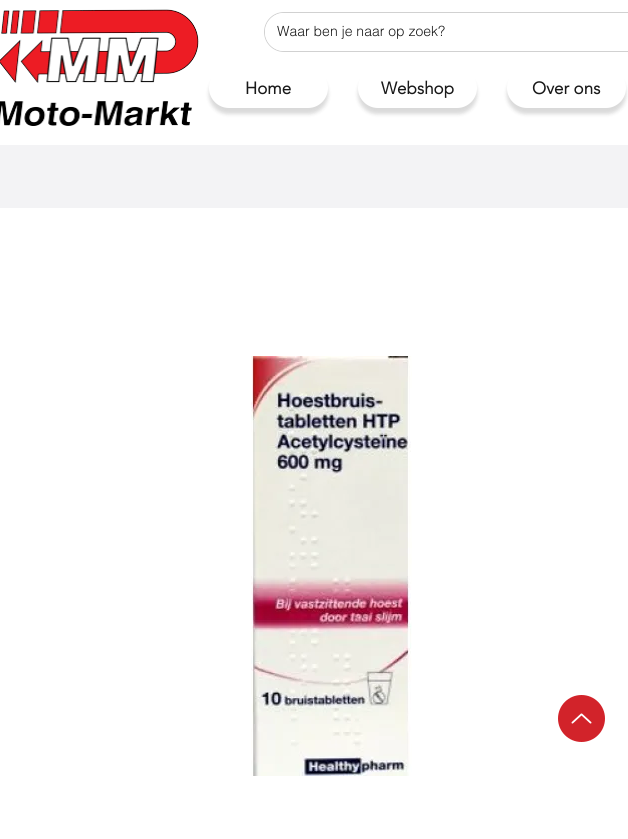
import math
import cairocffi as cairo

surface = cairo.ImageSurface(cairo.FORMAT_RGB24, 628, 839)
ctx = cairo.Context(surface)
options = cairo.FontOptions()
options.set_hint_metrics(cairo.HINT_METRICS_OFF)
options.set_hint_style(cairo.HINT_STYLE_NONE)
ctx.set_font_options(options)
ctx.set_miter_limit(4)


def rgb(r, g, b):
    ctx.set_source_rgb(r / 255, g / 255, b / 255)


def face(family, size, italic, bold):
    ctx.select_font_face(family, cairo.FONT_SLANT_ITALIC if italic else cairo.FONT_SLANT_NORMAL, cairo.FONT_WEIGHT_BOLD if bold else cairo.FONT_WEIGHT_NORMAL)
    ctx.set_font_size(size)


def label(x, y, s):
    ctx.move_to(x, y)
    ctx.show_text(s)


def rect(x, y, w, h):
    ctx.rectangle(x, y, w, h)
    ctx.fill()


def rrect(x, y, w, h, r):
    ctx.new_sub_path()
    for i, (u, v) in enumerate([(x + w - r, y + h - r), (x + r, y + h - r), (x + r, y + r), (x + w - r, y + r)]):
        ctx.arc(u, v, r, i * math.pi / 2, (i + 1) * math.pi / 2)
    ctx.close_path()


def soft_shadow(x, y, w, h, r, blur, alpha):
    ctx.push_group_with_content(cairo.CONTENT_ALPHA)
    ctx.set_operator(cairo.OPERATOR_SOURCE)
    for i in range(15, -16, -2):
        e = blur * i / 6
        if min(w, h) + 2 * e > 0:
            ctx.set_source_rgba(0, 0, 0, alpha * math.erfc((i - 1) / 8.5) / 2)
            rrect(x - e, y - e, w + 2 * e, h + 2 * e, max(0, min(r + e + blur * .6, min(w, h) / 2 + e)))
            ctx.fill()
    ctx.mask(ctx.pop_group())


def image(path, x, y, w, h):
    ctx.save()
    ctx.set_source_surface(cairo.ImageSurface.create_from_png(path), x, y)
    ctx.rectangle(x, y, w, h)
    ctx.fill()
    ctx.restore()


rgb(255, 255, 255)
ctx.paint()
image('image0.png', 0, 9, 199, 117)
rrect(264.5, 12.5, 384, 39, 19.5)
rgb(209, 209, 209)
ctx.set_line_width(1)
ctx.stroke()
rgb(255, 255, 255)
rrect(265, 13, 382, 38, 19)
ctx.fill()
face('helvetica Light', 14, 0, 0)
rgb(25, 25, 25)
label(277, 36, 'Waar ben je naar op zoek?')
rgb(0, 0, 0)
soft_shadow(209, 74, 119, 40, 20, 2, 0.15)
rgb(255, 255, 255)
rrect(209, 68, 119, 40, 20)
ctx.fill()
face('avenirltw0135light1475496', 17, 0, 1)
rgb(25, 25, 25)
label(245, 94, 'Home')
rgb(0, 0, 0)
soft_shadow(358, 74, 119, 40, 20, 2, 0.15)
rgb(255, 255, 255)
rrect(358, 68, 119, 40, 20)
ctx.fill()
rgb(25, 25, 25)
label(381, 94, 'Webshop')
rgb(0, 0, 0)
soft_shadow(507, 74, 119, 40, 20, 2, 0.15)
rgb(255, 255, 255)
rrect(507, 68, 119, 40, 20)
ctx.fill()
rgb(25, 25, 25)
label(532, 94, 'Over ons')
rgb(243, 243, 245)
rect(0, 145, 628, 63)
image('image1.png', 251, 356, 161, 420)
rgb(210, 35, 42)
ctx.arc(581.5, 718.5, 23.5, 0, 2 * math.pi)
ctx.fill()
image('image2.png', 571, 713, 21, 11)
surface.write_to_png('render.png')
